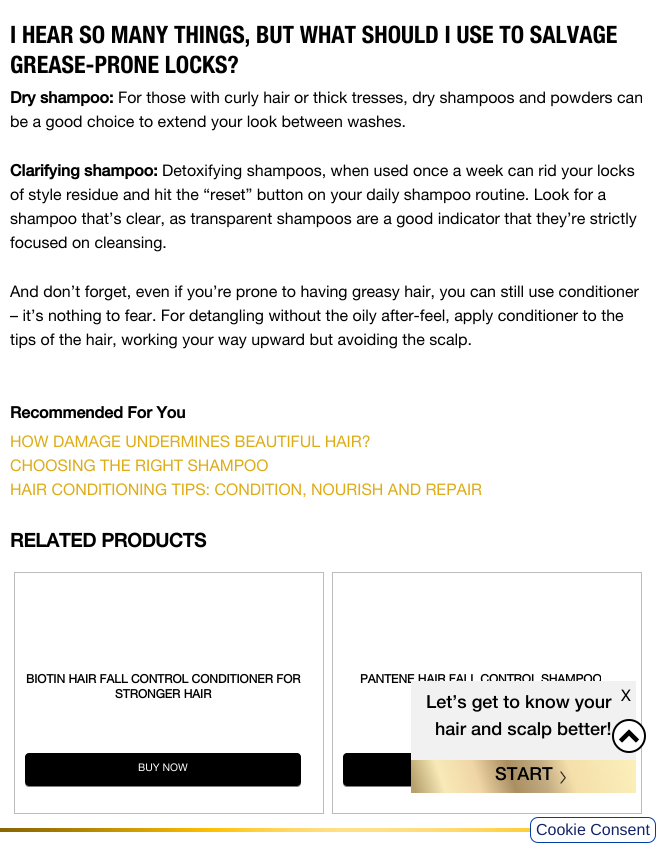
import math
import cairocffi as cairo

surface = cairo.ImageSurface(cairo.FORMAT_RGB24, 656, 843)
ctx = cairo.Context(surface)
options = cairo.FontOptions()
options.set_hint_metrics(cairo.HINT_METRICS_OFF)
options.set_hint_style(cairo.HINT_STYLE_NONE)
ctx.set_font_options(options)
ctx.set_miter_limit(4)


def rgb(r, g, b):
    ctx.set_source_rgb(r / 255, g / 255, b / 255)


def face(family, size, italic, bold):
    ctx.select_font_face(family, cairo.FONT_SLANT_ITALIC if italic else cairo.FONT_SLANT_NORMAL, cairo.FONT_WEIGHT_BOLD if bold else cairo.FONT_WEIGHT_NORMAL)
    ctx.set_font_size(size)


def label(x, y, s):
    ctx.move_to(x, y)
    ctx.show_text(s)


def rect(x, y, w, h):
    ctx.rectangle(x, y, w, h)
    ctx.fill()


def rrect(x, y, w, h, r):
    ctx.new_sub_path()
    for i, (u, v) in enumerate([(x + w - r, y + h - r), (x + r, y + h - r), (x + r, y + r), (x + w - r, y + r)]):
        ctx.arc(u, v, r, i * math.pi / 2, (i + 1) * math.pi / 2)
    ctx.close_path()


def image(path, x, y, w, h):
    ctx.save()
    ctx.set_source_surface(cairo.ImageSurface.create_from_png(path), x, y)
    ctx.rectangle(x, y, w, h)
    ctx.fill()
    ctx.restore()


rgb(255, 255, 255)
ctx.paint()
face('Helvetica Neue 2', 24, 0, 1)
rgb(0, 0, 0)
label(10, 43, 'I HEAR SO MANY THINGS, BUT WHAT SHOULD I USE TO SALVAGE')
label(10, 73, 'GREASE-PRONE LOCKS?')
face('Helvetica Neue', 16, 0, 1)
label(10, 103, 'Dry shampoo:')
face('Helvetica Neue', 16, 0, 0)
label(118, 103, 'For those with curly hair or thick tresses, dry shampoos and powders can')
label(10, 127, 'be a good choice to extend your look between washes.')
face('Helvetica Neue', 16, 0, 1)
label(10, 176, 'Clarifying shampoo:')
face('Helvetica Neue', 16, 0, 0)
label(162, 176, 'Detoxifying shampoos, when used once a week can rid your locks')
label(10, 200, 'of style residue and hit the “reset” button on your daily shampoo routine. Look for a')
label(10, 224, 'shampoo that’s clear, as transparent shampoos are a good indicator that they’re strictly')
label(10, 248, 'focused on cleansing.')
label(10, 297, 'And don’t forget, even if you’re prone to having greasy hair, you can still use conditioner')
label(10, 321, '– it’s nothing to fear. For detangling without the oily after-feel, apply conditioner to the')
label(10, 345, 'tips of the hair, working your way upward but avoiding the scalp.')
face('Helvetica Neue', 16, 0, 1)
label(10, 418, 'Recommended For You')
face('Helvetica Neue', 16, 0, 0)
rgb(221, 172, 23)
label(10, 447, 'HOW DAMAGE UNDERMINES BEAUTIFUL HAIR?')
label(10, 471, 'CHOOSING THE RIGHT SHAMPOO')
label(10, 495, 'HAIR CONDITIONING TIPS: CONDITION, NOURISH AND REPAIR')
face('Helvetica Neue', 19, 0, 1)
rgb(0, 0, 0)
label(10, 547, 'RELATED PRODUCTS')
ctx.rectangle(14.5, 572.5, 309, 241)
rgb(188, 188, 188)
ctx.set_line_width(1)
ctx.stroke()
face('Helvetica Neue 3', 12, 0, 1)
rgb(0, 0, 0)
label(26, 683, 'BIOTIN HAIR FALL CONTROL CONDITIONER FOR')
label(115, 698, 'STRONGER HAIR')
rgb(128, 128, 128)
ctx.new_path()
ctx.move_to(25, 782)
ctx.curve_to(25, 785, 26, 787, 29, 787)
ctx.line_to(297, 787)
ctx.curve_to(300, 787, 301, 785, 301, 782)
ctx.curve_to(301, 784, 299, 786, 297, 786)
ctx.line_to(29, 786)
ctx.curve_to(27, 786, 25, 784, 25, 782)
ctx.close_path()
ctx.fill()
rgb(0, 0, 0)
rrect(25, 753, 276, 33, 4)
ctx.fill()
face('Helvetica Neue', 10.5, 0, 0)
rgb(255, 255, 255)
label(138, 771, 'BUY NOW')
ctx.rectangle(332.5, 572.5, 309, 241)
rgb(188, 188, 188)
ctx.stroke()
face('Helvetica Neue 3', 12, 0, 1)
rgb(0, 0, 0)
label(360, 683, 'PANTENE HAIR FALL CONTROL SHAMPOO')
rgb(128, 128, 128)
ctx.new_path()
ctx.move_to(343, 782)
ctx.curve_to(343, 785, 344, 787, 347, 787)
ctx.line_to(615, 787)
ctx.curve_to(618, 787, 619, 785, 619, 782)
ctx.curve_to(619, 784, 617, 786, 615, 786)
ctx.line_to(347, 786)
ctx.curve_to(345, 786, 343, 784, 343, 782)
ctx.close_path()
ctx.fill()
rgb(0, 0, 0)
rrect(343, 753, 276, 33, 4)
ctx.fill()
rgb(241, 241, 241)
rect(411, 681, 225, 79)
face('Helvetica Neue Medium', 18, 0, 0)
rgb(0, 0, 0)
label(426, 708, 'Let’s get to know your')
label(435, 735, 'hair and scalp better!')
face('Helvetica Neue', 16, 0, 0)
label(621, 701, 'X')
image('image0.png', 411, 760, 225, 33)
face('Helvetica Neue Medium', 18, 0, 0)
label(495, 780, 'START')
image('image1.png', 560, 771, 6, 13)
rgb(255, 255, 255)
ctx.arc(629, 736, 16, 0, 2 * math.pi)
ctx.fill_preserve()
rgb(0, 0, 0)
ctx.set_line_width(2)
ctx.stroke()
image('image2.png', 619, 729, 20, 14)
image('image3.png', 0, 828, 530, 4)
rrect(530.5, 817.5, 125, 25, 7.5)
rgb(0, 61, 165)
ctx.set_line_width(1)
ctx.stroke()
face('Liberation Sans', 16, 0, 0)
rgb(19, 36, 104)
label(536, 835, 'Cookie Consent')
surface.write_to_png('render.png')
